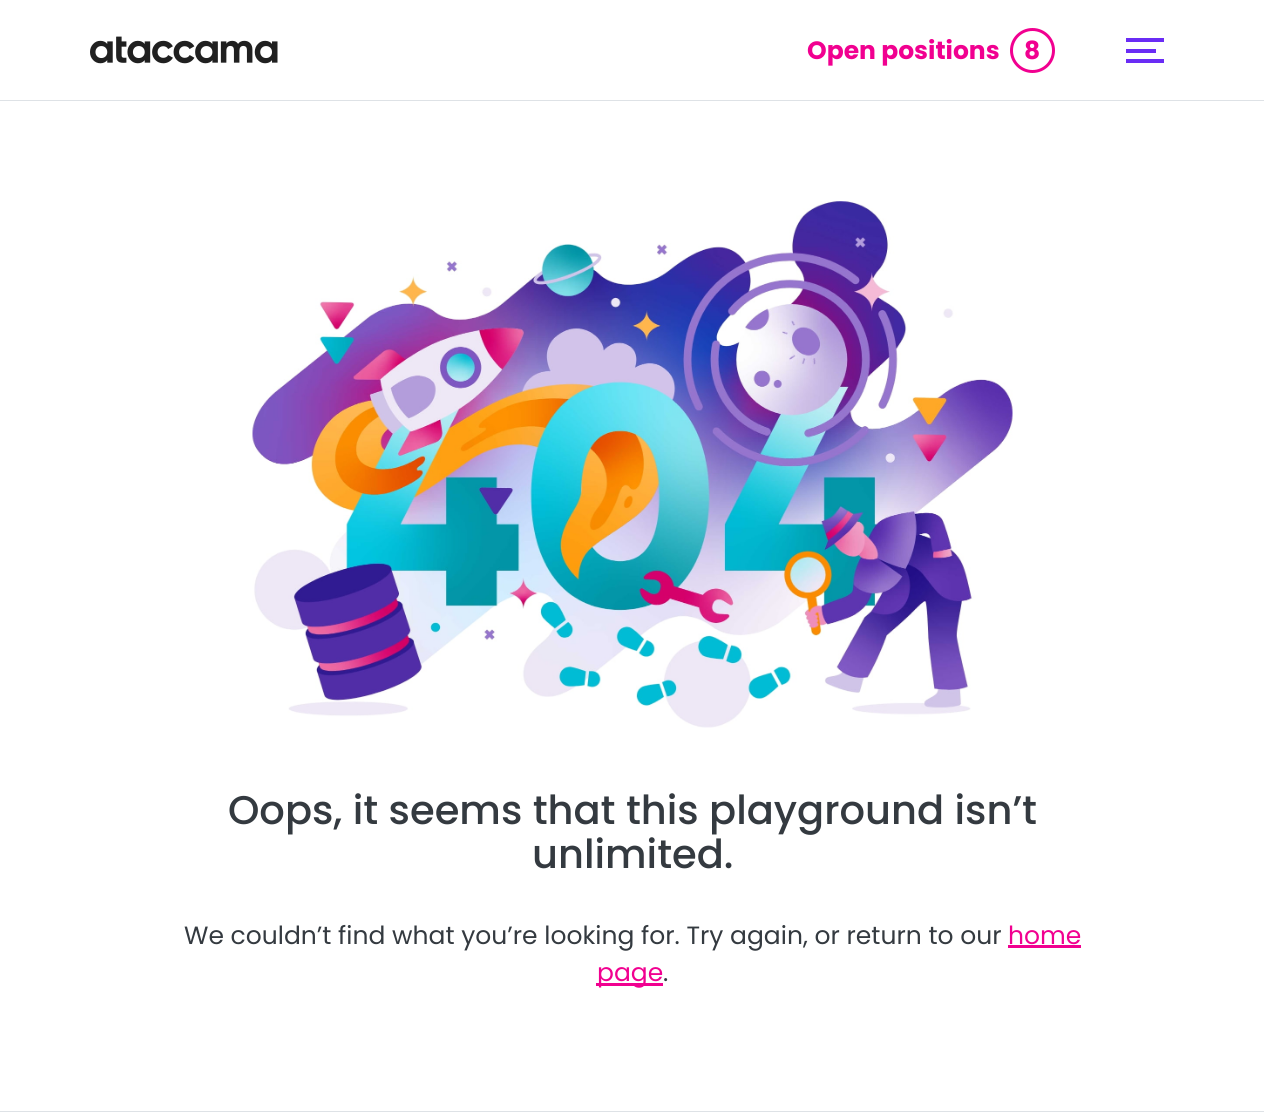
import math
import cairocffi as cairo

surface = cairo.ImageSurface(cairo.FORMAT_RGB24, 1264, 1119)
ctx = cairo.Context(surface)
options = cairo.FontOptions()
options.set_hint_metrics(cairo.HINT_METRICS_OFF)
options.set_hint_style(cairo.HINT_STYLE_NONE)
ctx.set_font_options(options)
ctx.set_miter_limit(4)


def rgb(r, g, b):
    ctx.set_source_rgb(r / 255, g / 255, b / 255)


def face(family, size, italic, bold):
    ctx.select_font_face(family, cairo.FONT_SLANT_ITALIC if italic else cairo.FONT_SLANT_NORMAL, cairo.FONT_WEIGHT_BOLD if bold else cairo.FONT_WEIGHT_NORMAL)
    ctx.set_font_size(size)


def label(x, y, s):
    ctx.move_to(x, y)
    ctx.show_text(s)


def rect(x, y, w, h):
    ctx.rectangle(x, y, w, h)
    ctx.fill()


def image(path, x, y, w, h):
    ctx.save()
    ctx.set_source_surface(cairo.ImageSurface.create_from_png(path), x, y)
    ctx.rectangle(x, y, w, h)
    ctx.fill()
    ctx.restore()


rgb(255, 255, 255)
ctx.paint()
rgb(222, 226, 230)
rect(0, 100, 1264, 1)
image('image0.png', 90, 36, 188, 28)
face('Poppins', 25, 0, 1)
rgb(241, 0, 144)
label(807, 59, 'Open positions')
ctx.new_path()
ctx.arc(1032.5, 50.5, 21, 0, 2 * math.pi)
ctx.set_line_width(3)
ctx.stroke()
label(1024, 59, '8')
rgb(106, 44, 245)
rect(1126, 38, 38, 4)
rect(1126, 49, 30, 4)
rect(1126, 59, 38, 4)
image('image1.png', 252, 201, 761, 527)
face('Poppins Medium', 40, 0, 0)
rgb(52, 58, 64)
label(228, 824, 'Oops, it seems that this playground isn’t')
label(532, 868, 'unlimited.')
face('Poppins', 25, 0, 0)
label(184, 944, 'We couldn’t find what you’re looking for. Try again, or return to our')
rgb(241, 0, 144)
label(1008, 944, 'home')
rect(1008, 945, 73, 3)
rect(596, 983, 67, 3)
label(597, 981, 'page')
rgb(52, 58, 64)
label(663, 981, '.')
rgb(222, 226, 230)
rect(0, 1111, 1264, 1)
surface.write_to_png('render.png')
